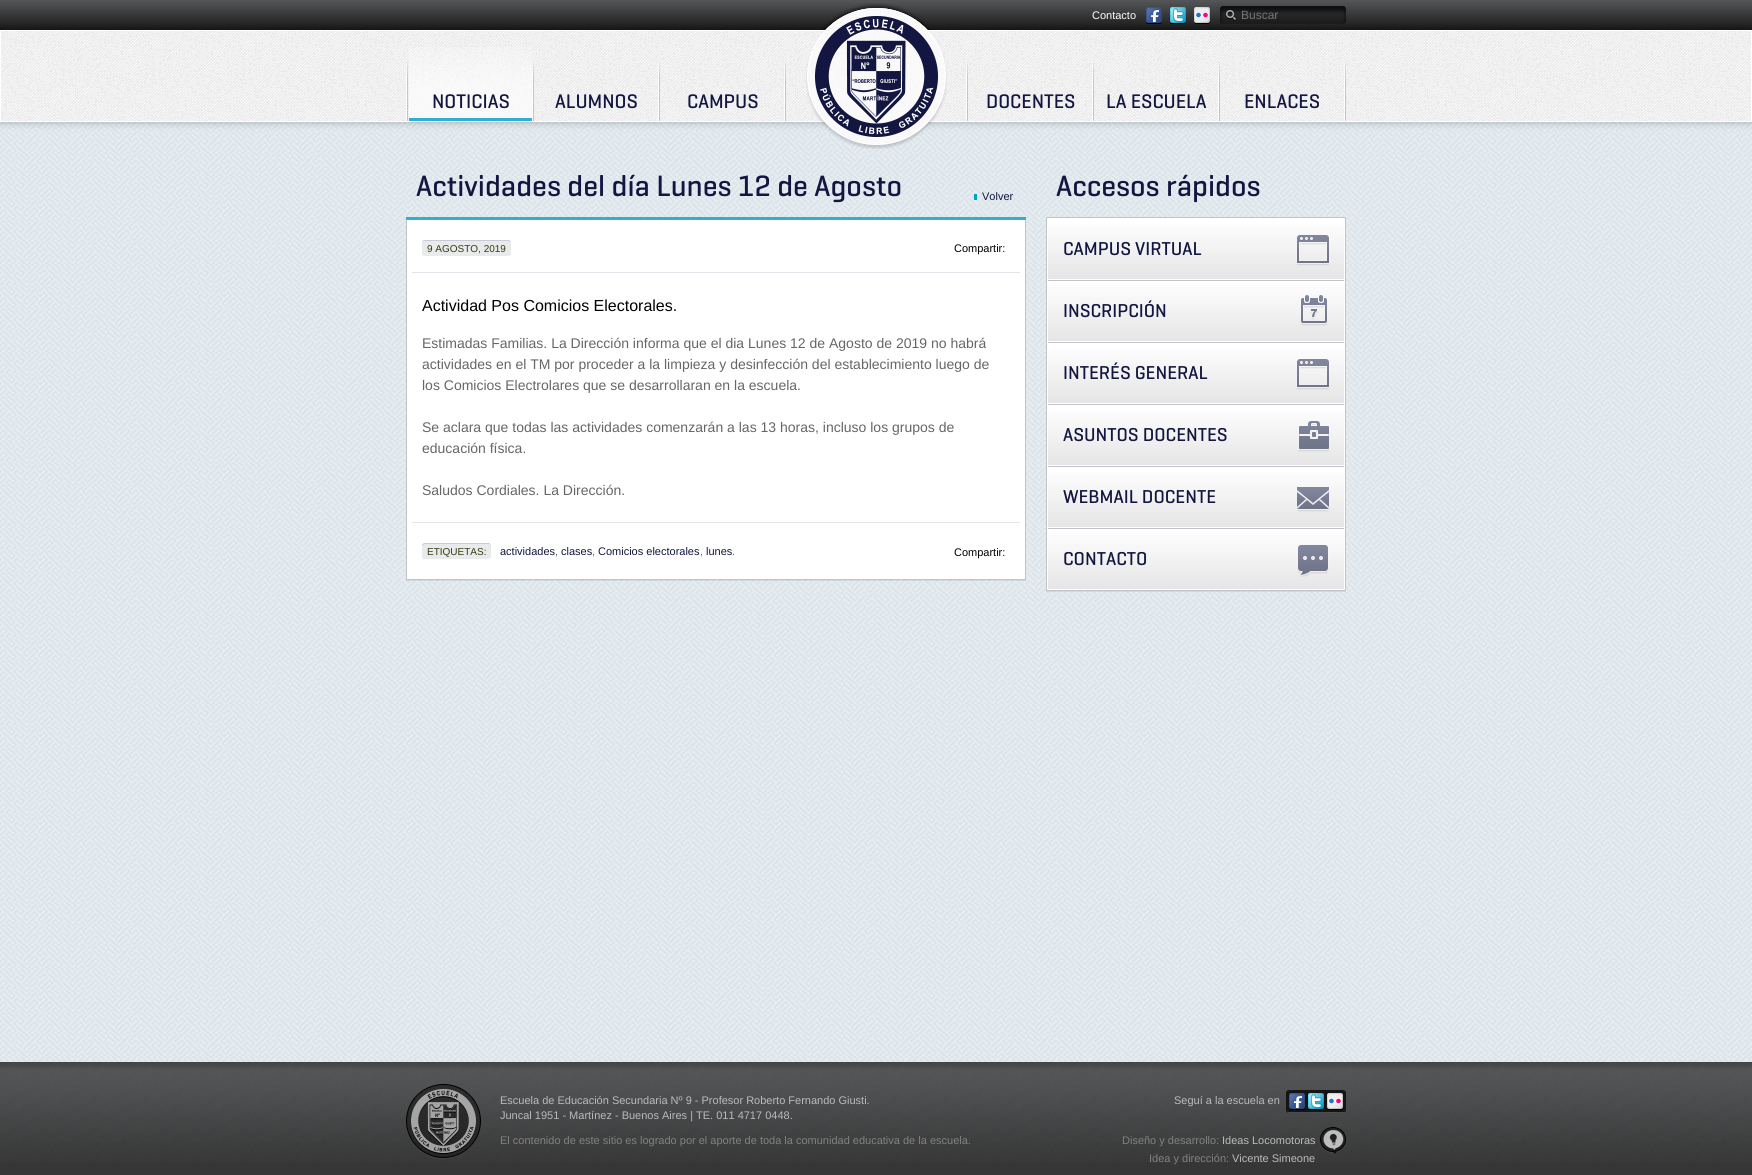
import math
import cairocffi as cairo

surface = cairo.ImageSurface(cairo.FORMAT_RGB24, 1752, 1175)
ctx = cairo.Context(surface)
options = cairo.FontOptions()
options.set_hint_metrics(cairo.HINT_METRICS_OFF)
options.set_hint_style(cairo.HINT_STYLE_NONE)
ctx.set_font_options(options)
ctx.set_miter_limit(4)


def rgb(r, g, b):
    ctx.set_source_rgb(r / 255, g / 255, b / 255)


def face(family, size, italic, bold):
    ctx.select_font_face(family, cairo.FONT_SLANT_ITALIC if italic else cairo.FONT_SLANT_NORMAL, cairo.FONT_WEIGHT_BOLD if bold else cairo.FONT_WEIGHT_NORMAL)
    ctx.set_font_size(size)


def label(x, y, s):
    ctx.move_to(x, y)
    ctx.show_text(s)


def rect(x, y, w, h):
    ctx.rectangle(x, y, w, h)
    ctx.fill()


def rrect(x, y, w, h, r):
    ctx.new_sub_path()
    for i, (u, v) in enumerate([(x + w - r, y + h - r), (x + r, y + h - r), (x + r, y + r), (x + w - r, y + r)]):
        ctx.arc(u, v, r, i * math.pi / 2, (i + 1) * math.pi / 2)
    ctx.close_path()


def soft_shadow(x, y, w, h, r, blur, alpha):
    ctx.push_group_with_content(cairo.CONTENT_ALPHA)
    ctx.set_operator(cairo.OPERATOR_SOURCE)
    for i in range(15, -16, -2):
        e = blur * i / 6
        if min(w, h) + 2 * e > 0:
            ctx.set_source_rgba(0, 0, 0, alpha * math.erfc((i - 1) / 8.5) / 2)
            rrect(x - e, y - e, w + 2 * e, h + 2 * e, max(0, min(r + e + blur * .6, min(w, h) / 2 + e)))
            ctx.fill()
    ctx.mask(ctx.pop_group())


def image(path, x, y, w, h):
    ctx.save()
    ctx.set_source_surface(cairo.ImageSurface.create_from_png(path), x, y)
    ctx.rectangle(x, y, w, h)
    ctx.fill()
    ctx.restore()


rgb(255, 255, 255)
ctx.paint()
image('image0.png', 0, 122, 1752, 940)
gradient = cairo.LinearGradient(876, 0, 876, 30)
gradient.add_color_stop_rgba(0, 0.329, 0.337, 0.345, 1)
gradient.add_color_stop_rgba(1, 0.098, 0.098, 0.098, 1)
ctx.set_source(gradient)
rect(0, 0, 1752, 30)
rgb(0, 0, 0)
soft_shadow(0, 30, 1752, 92, 0, 4, 0.3)
face('Liberation Sans', 11, 0, 0)
rgb(255, 255, 255)
label(1092, 19, 'Contacto')
image('image1.png', 1146, 7, 16, 17)
image('image2.png', 1170, 7, 16, 17)
image('image3.png', 1194, 7, 16, 17)
image('image4.png', 1220, 6, 126, 18)
face('Liberation Sans', 12, 0, 0)
rgb(117, 117, 117)
label(1241, 19, 'Buscar')
image('image5.png', 1, 31, 1750, 90)
ctx.rectangle(0.5, 30.5, 1751, 91)
rgb(255, 255, 255)
ctx.set_line_width(1)
ctx.stroke()
image('image6.png', 806, 3, 141, 146)
image('image7.png', 966, 60, 2, 61)
image('image8.png', 406, 60, 2, 61)
image('image9.png', 532, 60, 2, 61)
image('image10.png', 409, 47, 123, 71)
rgb(47, 176, 210)
rect(409, 118, 123, 3)
face('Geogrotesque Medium', 20, 0, 0)
rgb(19, 22, 64)
label(432, 108, 'NOTICIAS')
image('image11.png', 658, 60, 2, 61)
label(555, 108, 'ALUMNOS')
image('image12.png', 784, 60, 2, 61)
label(687, 108, 'CAMPUS')
image('image13.png', 1092, 60, 2, 61)
label(986, 108, 'DOCENTES')
image('image14.png', 1218, 60, 2, 61)
label(1106, 108, 'LA ESCUELA')
image('image15.png', 1344, 60, 2, 61)
label(1244, 108, 'ENLACES')
rgb(47, 176, 210)
rect(406, 217, 620, 3)
face('Geogrotesque Medium', 30, 0, 0)
rgb(19, 22, 64)
label(416, 196, 'Actividades del día Lunes 12 de Agosto')
rgb(0, 161, 203)
rect(974, 194, 3, 6)
face('Liberation Sans', 11, 0, 0)
rgb(19, 22, 64)
label(982, 200, 'Volver')
ctx.set_source_rgba(0.2, 0.263, 0.278, 0.1)
rect(406, 580, 620, 1)
rgb(255, 255, 255)
rect(407, 220, 618, 359)
rgb(193, 194, 202)
rect(1025, 220, 1, 360)
rect(406, 579, 620, 1)
rect(406, 220, 1, 360)
rgb(227, 228, 234)
rect(412, 272, 608, 1)
rgb(232, 234, 235)
rrect(422, 240, 89, 17, 3)
ctx.fill()
rgb(200, 202, 214)
ctx.new_path()
ctx.move_to(425, 240)
ctx.curve_to(423, 240, 422, 241, 422, 243)
ctx.curve_to(422, 242, 423, 241, 425, 241)
ctx.line_to(508, 241)
ctx.curve_to(510, 241, 511, 242, 511, 243)
ctx.curve_to(511, 241, 510, 240, 508, 240)
ctx.close_path()
ctx.fill()
rgb(255, 255, 255)
ctx.new_path()
ctx.move_to(508, 257)
ctx.curve_to(510, 257, 511, 256, 511, 254)
ctx.curve_to(511, 255, 510, 256, 508, 256)
ctx.line_to(425, 256)
ctx.curve_to(423, 256, 422, 255, 422, 254)
ctx.curve_to(422, 256, 423, 257, 425, 257)
ctx.close_path()
ctx.fill()
face('Liberation Sans', 10, 0, 0)
rgb(54, 59, 17)
label(427, 252, '9 AGOSTO, 2019')
face('Liberation Sans', 11, 0, 0)
rgb(0, 0, 0)
label(954, 252, 'Compartir:')
face('Liberation Sans', 16, 0, 0)
label(422, 311, 'Actividad Pos Comicios Electorales.')
face('Liberation Sans', 14, 0, 0)
rgb(102, 102, 102)
label(422, 348, 'Estimadas Familias. La Dirección informa que el dia Lunes 12 de Agosto de 2019 no habrá')
label(422, 369, 'actividades en el TM por proceder a la limpieza y desinfección del establecimiento luego de')
label(422, 390, 'los Comicios Electrolares que se desarrollaran en la escuela.')
label(422, 432, 'Se aclara que todas las actividades comenzarán a las 13 horas, incluso los grupos de')
label(422, 453, 'educación física.')
label(422, 495, 'Saludos Cordiales. La Dirección.')
rgb(227, 228, 234)
rect(412, 522, 608, 1)
rgb(232, 234, 235)
rrect(422, 543, 69, 17, 3)
ctx.fill()
rgb(200, 202, 214)
ctx.new_path()
ctx.move_to(425, 543)
ctx.curve_to(423, 543, 422, 545, 422, 546)
ctx.line_to(423, 545)
ctx.line_to(425, 544)
ctx.line_to(488, 544)
ctx.curve_to(491, 544, 491, 546, 491, 548)
ctx.curve_to(491, 546, 491, 544, 489, 543)
ctx.close_path()
ctx.fill()
rgb(255, 255, 255)
ctx.new_path()
ctx.move_to(422, 557)
ctx.line_to(422, 558)
ctx.line_to(424, 560)
ctx.line_to(477, 560)
ctx.curve_to(478, 560, 491, 563, 491, 557)
ctx.curve_to(491, 558, 489, 559, 488, 559)
ctx.line_to(423, 559)
ctx.close_path()
ctx.fill()
face('Liberation Sans', 10, 0, 0)
rgb(54, 59, 17)
label(427, 555, 'ETIQUETAS:')
face('Liberation Sans', 11, 0, 0)
rgb(19, 22, 64)
label(500, 555, 'actividades')
rgb(102, 102, 102)
label(555, 555, ',')
rgb(19, 22, 64)
label(561, 555, 'clases')
rgb(102, 102, 102)
label(592, 555, ',')
rgb(19, 22, 64)
label(598, 555, 'Comicios electorales')
rgb(102, 102, 102)
label(700, 555, ',')
rgb(19, 22, 64)
label(706, 555, 'lunes')
rgb(102, 102, 102)
label(732, 555, '.')
rgb(0, 0, 0)
label(954, 556, 'Compartir:')
face('Geogrotesque Medium', 30, 0, 0)
rgb(19, 22, 64)
label(1056, 196, 'Accesos rápidos')
ctx.set_source_rgba(0.2, 0.263, 0.278, 0.1)
rect(1046, 591, 300, 1)
rgb(255, 255, 255)
ctx.rectangle(1046.5, 217.5, 299, 373)
ctx.fill_preserve()
rgb(193, 194, 202)
ctx.stroke()
gradient = cairo.LinearGradient(1196, 219, 1196, 279)
gradient.add_color_stop_rgba(0, 1, 1, 1, 1)
gradient.add_color_stop_rgba(1, 0.898, 0.898, 0.898, 1)
ctx.set_source(gradient)
rect(1048, 225, 296, 54)
face('Geogrotesque Medium', 19, 0, 0)
rgb(19, 22, 64)
label(1063, 255, 'CAMPUS VIRTUAL')
image('image16.png', 1296, 235, 34, 31)
rgb(193, 194, 202)
rect(1048, 280, 296, 1)
gradient = cairo.LinearGradient(1196, 281, 1196, 341)
gradient.add_color_stop_rgba(0, 1, 1, 1, 1)
gradient.add_color_stop_rgba(1, 0.898, 0.898, 0.898, 1)
ctx.set_source(gradient)
rect(1048, 287, 296, 54)
rgb(19, 22, 64)
label(1063, 317, 'INSCRIPCIÓN')
image('image17.png', 1300, 295, 28, 31)
rgb(193, 194, 202)
rect(1048, 342, 296, 1)
gradient = cairo.LinearGradient(1196, 343, 1196, 403)
gradient.add_color_stop_rgba(0, 1, 1, 1, 1)
gradient.add_color_stop_rgba(1, 0.898, 0.898, 0.898, 1)
ctx.set_source(gradient)
rect(1048, 349, 296, 54)
rgb(19, 22, 64)
label(1063, 379, 'INTERÉS GENERAL')
image('image16.png', 1296, 359, 34, 31)
rgb(193, 194, 202)
rect(1048, 404, 296, 1)
gradient = cairo.LinearGradient(1196, 405, 1196, 465)
gradient.add_color_stop_rgba(0, 1, 1, 1, 1)
gradient.add_color_stop_rgba(1, 0.898, 0.898, 0.898, 1)
ctx.set_source(gradient)
rect(1048, 411, 296, 54)
rgb(19, 22, 64)
label(1063, 441, 'ASUNTOS DOCENTES')
image('image18.png', 1298, 421, 32, 31)
rgb(193, 194, 202)
rect(1048, 466, 296, 1)
gradient = cairo.LinearGradient(1196, 467, 1196, 527)
gradient.add_color_stop_rgba(0, 1, 1, 1, 1)
gradient.add_color_stop_rgba(1, 0.898, 0.898, 0.898, 1)
ctx.set_source(gradient)
rect(1048, 473, 296, 54)
rgb(19, 22, 64)
label(1063, 503, 'WEBMAIL DOCENTE')
image('image19.png', 1297, 487, 33, 25)
rgb(193, 194, 202)
rect(1048, 528, 296, 1)
gradient = cairo.LinearGradient(1196, 529, 1196, 589)
gradient.add_color_stop_rgba(0, 1, 1, 1, 1)
gradient.add_color_stop_rgba(1, 0.898, 0.898, 0.898, 1)
ctx.set_source(gradient)
rect(1048, 535, 296, 54)
rgb(19, 22, 64)
label(1063, 565, 'CONTACTO')
image('image20.png', 1297, 545, 32, 32)
rgb(54, 54, 54)
rect(0, 1163, 1752, 12)
image('image21.png', 0, 1062, 1752, 101)
image('image22.png', 406, 1084, 75, 75)
face('Liberation Sans', 11, 0, 0)
rgb(186, 187, 187)
label(500, 1104, 'Escuela de Educación Secundaria Nº 9 - Profesor Roberto Fernando Giusti.')
label(500, 1119, 'Juncal 1951 - Martínez - Buenos Aires | TE. 011 4717 0448.')
rgb(128, 129, 129)
label(500, 1144, 'El contenido de este sitio es logrado por el aporte de toda la comunidad educativa de la escuela.')
rgb(186, 187, 187)
label(1174, 1104, 'Seguí a la escuela en')
rgb(21, 21, 21)
rrect(1286, 1090, 60, 23, 3)
ctx.fill()
rgb(76, 78, 79)
rect(1288, 1112, 57, 1)
image('image23.png', 1289, 1093, 16, 17)
image('image24.png', 1308, 1093, 16, 17)
image('image25.png', 1327, 1093, 16, 17)
rgb(128, 129, 129)
label(1122, 1144, 'Diseño y desarrollo:')
image('image26.png', 1320, 1127, 26, 28)
rgb(186, 187, 187)
label(1222, 1144, 'Ideas Locomotoras')
rgb(128, 129, 129)
label(1149, 1162, 'Idea y dirección:')
rgb(186, 187, 187)
label(1232, 1162, 'Vicente Simeone')
surface.write_to_png('render.png')
